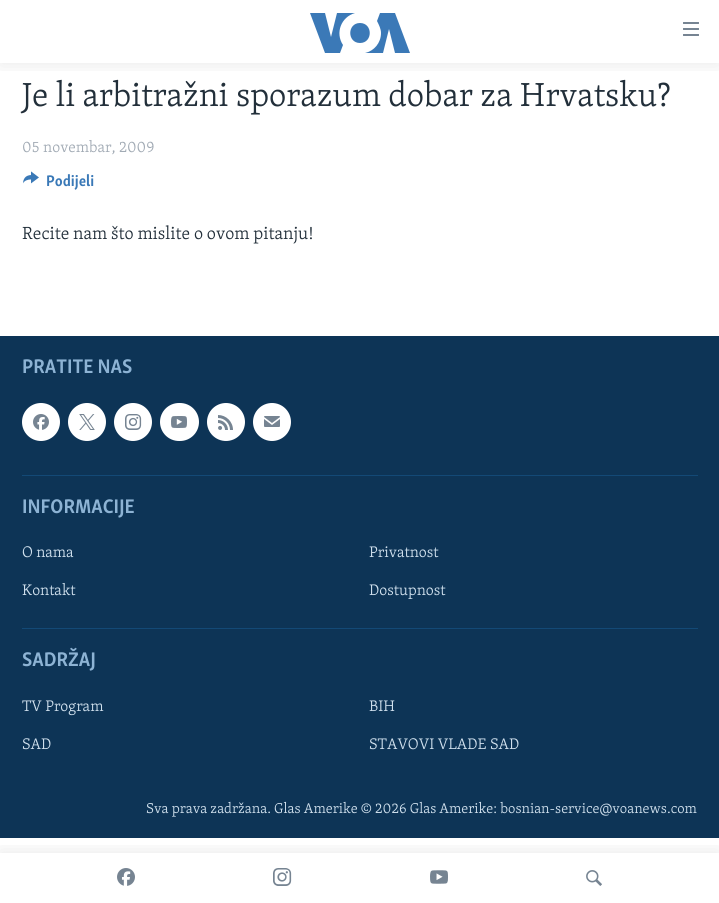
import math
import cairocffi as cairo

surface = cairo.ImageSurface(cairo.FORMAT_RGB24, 719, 903)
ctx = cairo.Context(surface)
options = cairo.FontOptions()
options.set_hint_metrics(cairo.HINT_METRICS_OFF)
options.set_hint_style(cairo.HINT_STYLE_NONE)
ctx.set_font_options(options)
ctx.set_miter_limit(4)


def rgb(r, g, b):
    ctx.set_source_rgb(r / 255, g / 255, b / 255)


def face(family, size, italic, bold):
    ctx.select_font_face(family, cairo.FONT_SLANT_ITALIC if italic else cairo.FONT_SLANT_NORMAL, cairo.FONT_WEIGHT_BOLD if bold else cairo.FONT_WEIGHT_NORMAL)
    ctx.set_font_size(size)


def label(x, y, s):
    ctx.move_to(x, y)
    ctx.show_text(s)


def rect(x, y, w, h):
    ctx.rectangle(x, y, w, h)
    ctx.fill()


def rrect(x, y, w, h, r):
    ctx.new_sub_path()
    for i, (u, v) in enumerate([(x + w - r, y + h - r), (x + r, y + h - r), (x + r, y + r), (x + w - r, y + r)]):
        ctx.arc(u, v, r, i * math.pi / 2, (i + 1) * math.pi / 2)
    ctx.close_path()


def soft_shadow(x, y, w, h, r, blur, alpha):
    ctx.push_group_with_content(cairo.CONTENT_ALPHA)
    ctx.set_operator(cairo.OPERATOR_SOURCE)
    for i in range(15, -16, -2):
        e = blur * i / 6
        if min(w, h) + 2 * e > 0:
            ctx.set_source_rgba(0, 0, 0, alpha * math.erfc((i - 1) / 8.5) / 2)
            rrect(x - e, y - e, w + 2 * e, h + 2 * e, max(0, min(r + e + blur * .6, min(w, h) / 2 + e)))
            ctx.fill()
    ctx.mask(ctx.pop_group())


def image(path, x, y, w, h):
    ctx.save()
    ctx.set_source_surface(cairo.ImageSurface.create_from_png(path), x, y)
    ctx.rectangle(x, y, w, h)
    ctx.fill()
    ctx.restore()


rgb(255, 255, 255)
ctx.paint()
ctx.save()
ctx.rectangle(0, 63, 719, 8)
ctx.clip()
rgb(0, 0, 0)
soft_shadow(0, 0, 719, 63, 0, 10, 0.1)
ctx.restore()
rgb(59, 121, 183)
ctx.new_path()
ctx.move_to(343, 45)
ctx.line_to(340, 53)
ctx.line_to(325, 53)
ctx.line_to(310, 13)
ctx.line_to(325, 13)
ctx.line_to(331, 37)
ctx.line_to(337, 13)
ctx.line_to(355, 13)
ctx.curve_to(341, 17, 335, 33, 343, 45)
ctx.close_path()
ctx.move_to(360, 23)
ctx.curve_to(347, 23, 347, 43, 360, 43)
ctx.curve_to(373, 43, 373, 23, 360, 23)
ctx.close_path()
ctx.move_to(381, 33)
ctx.curve_to(381, 43, 374, 51, 365, 53)
ctx.line_to(383, 53)
ctx.line_to(389, 29)
ctx.line_to(395, 53)
ctx.line_to(410, 53)
ctx.line_to(395, 13)
ctx.line_to(380, 13)
ctx.line_to(377, 21)
ctx.curve_to(379, 25, 381, 29, 381, 33)
ctx.close_path()
ctx.fill()
image('image0.png', 683, 22, 16, 14)
rgb(13, 52, 86)
rect(0, 336, 719, 502)
ctx.save()
ctx.rectangle(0, 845, 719, 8)
ctx.clip()
rgb(0, 0, 0)
soft_shadow(0, 853, 719, 50, 0, 10, 0.1)
ctx.restore()
image('image1.png', 117, 868, 18, 18)
image('image2.png', 273, 868, 19, 18)
image('image3.png', 430, 870, 18, 14)
image('image4.png', 586, 870, 16, 16)
face('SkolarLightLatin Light', 34.25, 0, 0)
rgb(34, 47, 58)
label(22, 106, 'Je li arbitražni sporazum dobar za Hrvatsku?')
face('SkolarLightLatin Light', 15.75, 0, 0)
rgb(161, 170, 180)
label(22, 152, '05 novembar, 2009')
image('image5.png', 23, 171, 16, 13)
face('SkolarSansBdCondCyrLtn', 15.75, 0, 1)
rgb(58, 121, 183)
label(46, 186, 'Podijeli')
face('SkolarLightLatin Light', 18, 0, 0)
rgb(34, 47, 58)
label(22, 239, 'Recite nam što mislite o ovom pitanju!')
face('SkolarSansBdCondCyrLtn', 20.25, 0, 1)
rgb(141, 179, 212)
label(22, 373, 'PRATITE NAS')
rgb(255, 255, 255)
ctx.new_path()
ctx.arc(41, 422, 19, 0, 2 * math.pi)
ctx.fill()
image('image6.png', 33, 414, 16, 16)
ctx.arc(87, 422, 19, 0, 2 * math.pi)
ctx.fill()
image('image7.png', 79, 414, 16, 16)
ctx.arc(133, 422, 19, 0, 2 * math.pi)
ctx.fill()
image('image8.png', 125, 414, 17, 16)
rrect(160, 403, 39, 38, 19)
ctx.fill()
image('image9.png', 171, 416, 16, 12)
ctx.arc(226, 422, 19, 0, 2 * math.pi)
ctx.fill()
image('image10.png', 218, 415, 15, 15)
ctx.arc(272, 422, 19, 0, 2 * math.pi)
ctx.fill()
image('image11.png', 264, 416, 16, 11)
rgb(19, 73, 118)
rect(22, 475, 676, 1)
rgb(141, 179, 212)
label(22, 513, 'INFORMACIJE')
face('SkolarLightLatin Light', 15.75, 0, 0)
rgb(209, 225, 238)
label(22, 557, 'O nama')
label(369, 557, 'Privatnost')
label(22, 595, 'Kontakt')
label(369, 595, 'Dostupnost')
rgb(19, 73, 118)
rect(22, 628, 676, 1)
face('SkolarSansBdCondCyrLtn', 20.25, 0, 1)
rgb(141, 179, 212)
label(22, 666, 'SADRŽAJ')
face('SkolarLightLatin Light', 15.75, 0, 0)
rgb(209, 225, 238)
label(22, 711, 'TV Program')
label(369, 711, 'BIH')
label(22, 749, 'SAD')
label(369, 749, 'STAVOVI VLADE SAD')
face('SkolarLightLatin Light', 14.6, 0, 0)
label(146, 813, 'Sva prava zadržana. Glas Amerike © 2026 Glas Amerike: bosnian-service@voanews.com')
surface.write_to_png('render.png')
